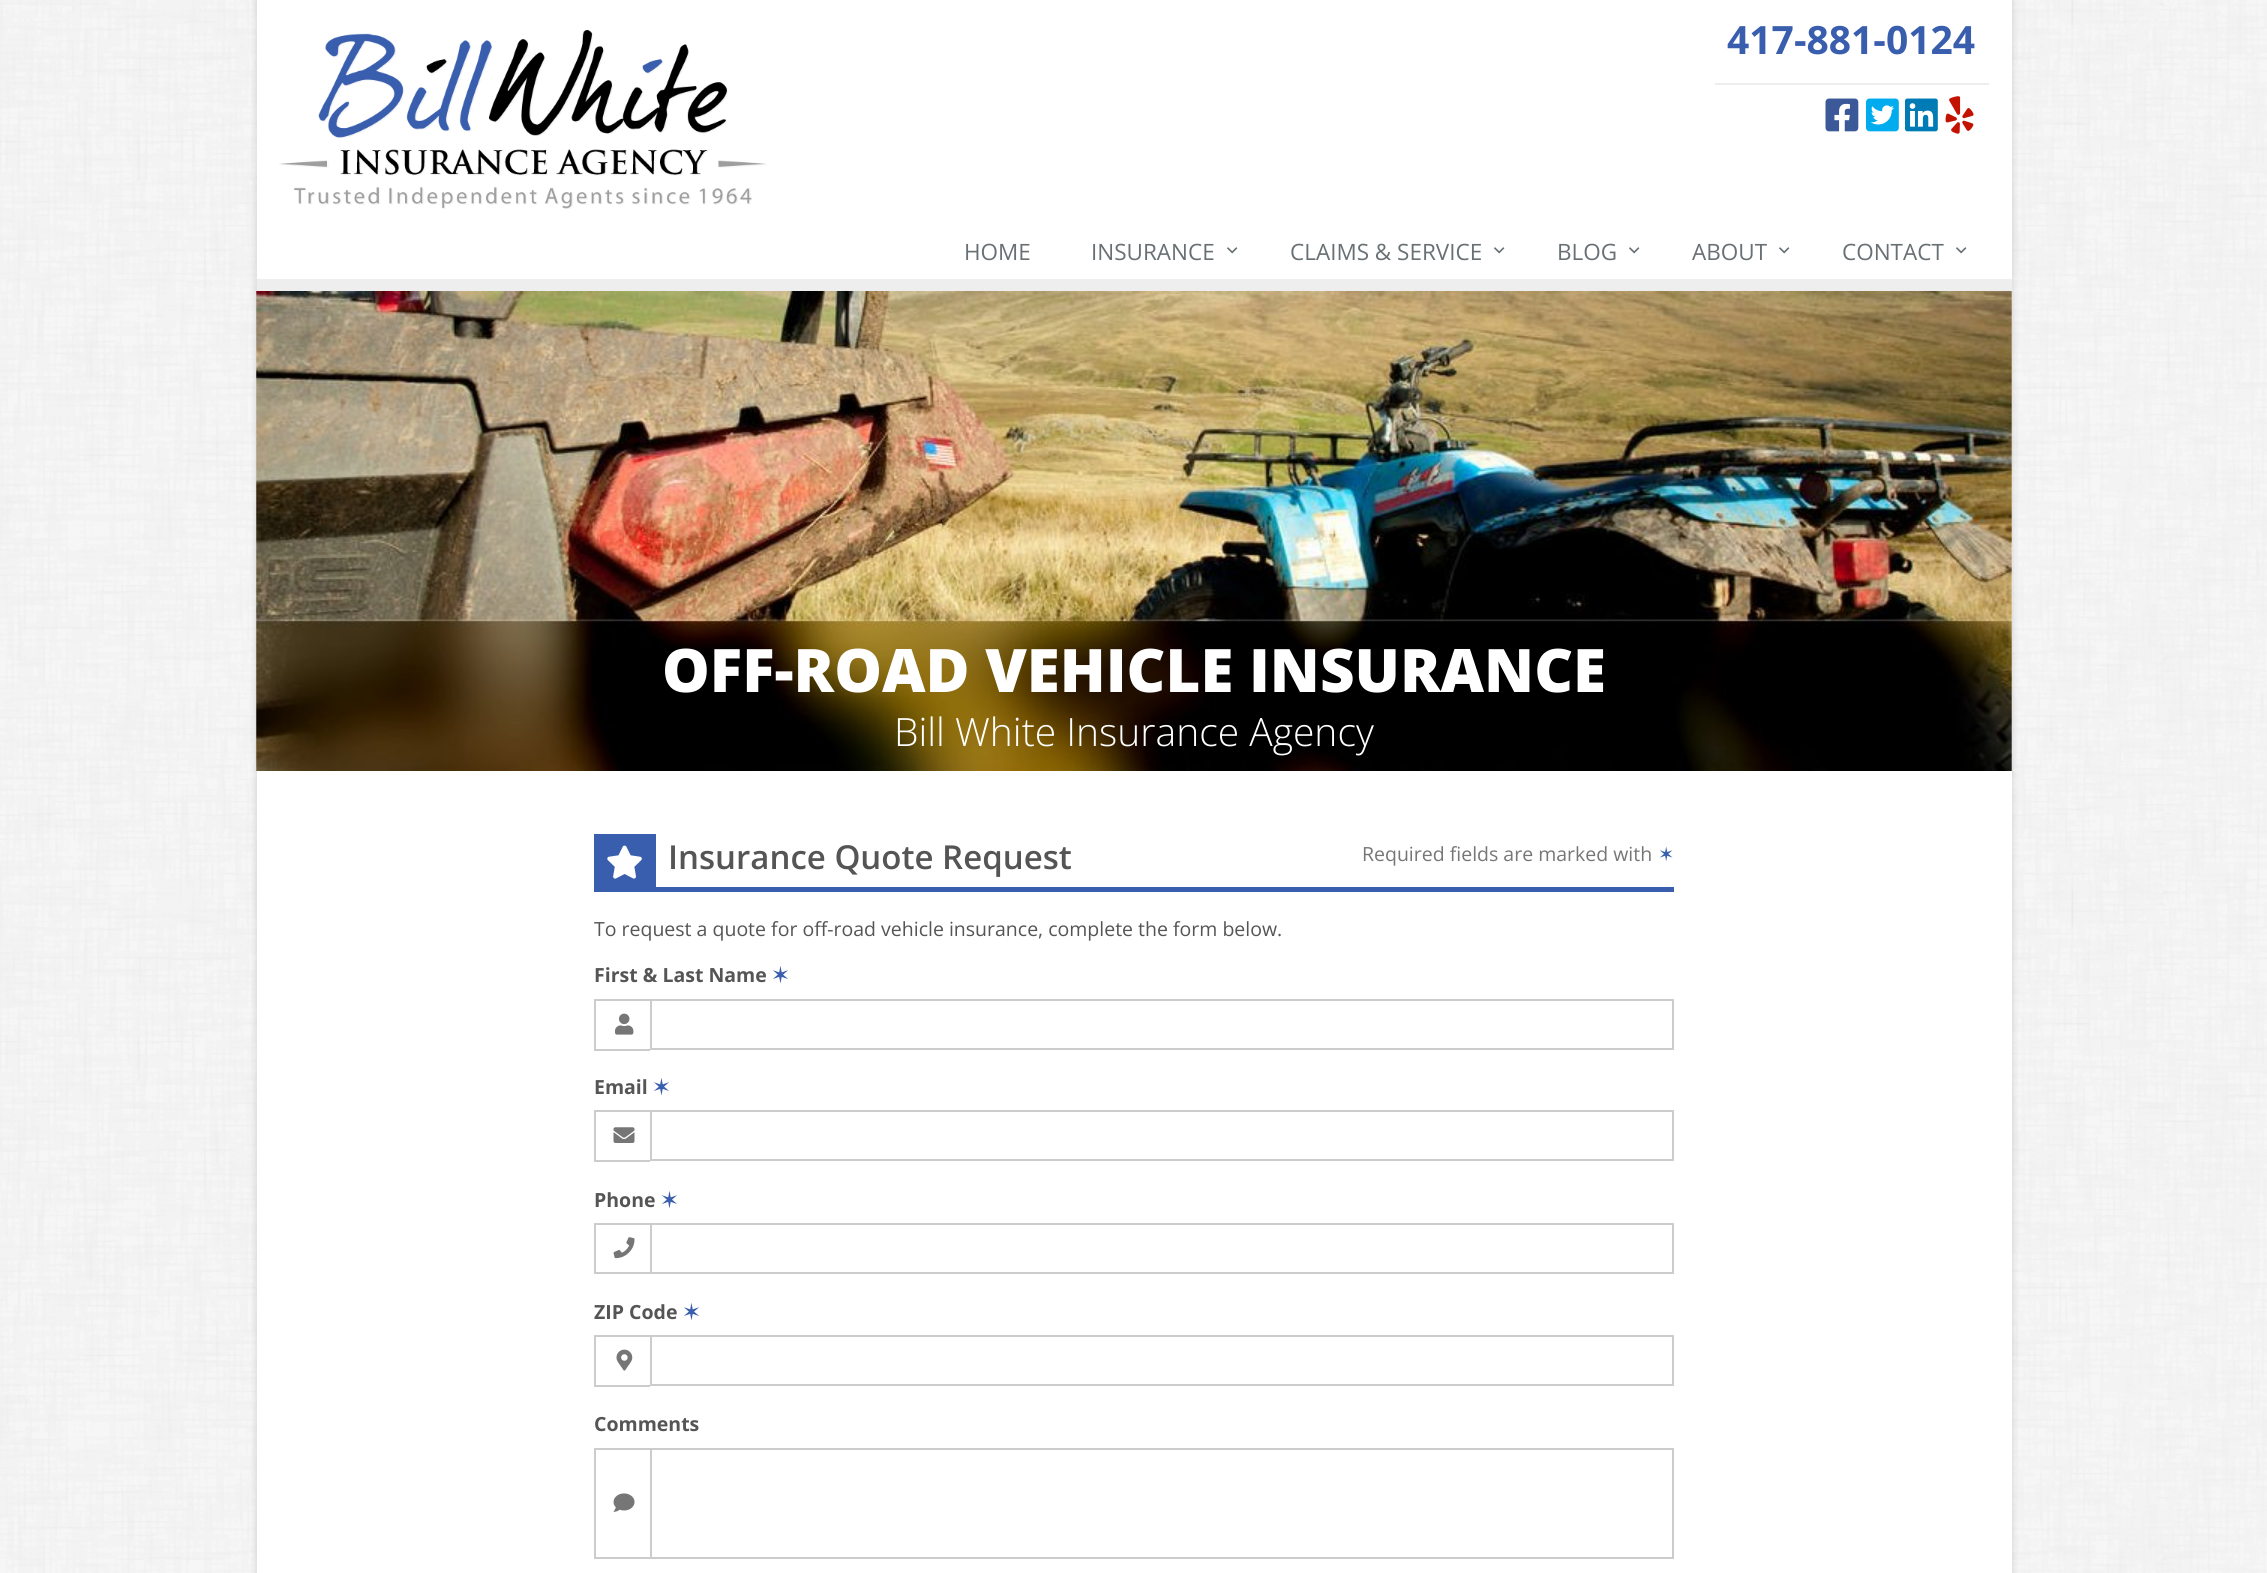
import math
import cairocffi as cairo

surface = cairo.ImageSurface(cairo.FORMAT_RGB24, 2267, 1573)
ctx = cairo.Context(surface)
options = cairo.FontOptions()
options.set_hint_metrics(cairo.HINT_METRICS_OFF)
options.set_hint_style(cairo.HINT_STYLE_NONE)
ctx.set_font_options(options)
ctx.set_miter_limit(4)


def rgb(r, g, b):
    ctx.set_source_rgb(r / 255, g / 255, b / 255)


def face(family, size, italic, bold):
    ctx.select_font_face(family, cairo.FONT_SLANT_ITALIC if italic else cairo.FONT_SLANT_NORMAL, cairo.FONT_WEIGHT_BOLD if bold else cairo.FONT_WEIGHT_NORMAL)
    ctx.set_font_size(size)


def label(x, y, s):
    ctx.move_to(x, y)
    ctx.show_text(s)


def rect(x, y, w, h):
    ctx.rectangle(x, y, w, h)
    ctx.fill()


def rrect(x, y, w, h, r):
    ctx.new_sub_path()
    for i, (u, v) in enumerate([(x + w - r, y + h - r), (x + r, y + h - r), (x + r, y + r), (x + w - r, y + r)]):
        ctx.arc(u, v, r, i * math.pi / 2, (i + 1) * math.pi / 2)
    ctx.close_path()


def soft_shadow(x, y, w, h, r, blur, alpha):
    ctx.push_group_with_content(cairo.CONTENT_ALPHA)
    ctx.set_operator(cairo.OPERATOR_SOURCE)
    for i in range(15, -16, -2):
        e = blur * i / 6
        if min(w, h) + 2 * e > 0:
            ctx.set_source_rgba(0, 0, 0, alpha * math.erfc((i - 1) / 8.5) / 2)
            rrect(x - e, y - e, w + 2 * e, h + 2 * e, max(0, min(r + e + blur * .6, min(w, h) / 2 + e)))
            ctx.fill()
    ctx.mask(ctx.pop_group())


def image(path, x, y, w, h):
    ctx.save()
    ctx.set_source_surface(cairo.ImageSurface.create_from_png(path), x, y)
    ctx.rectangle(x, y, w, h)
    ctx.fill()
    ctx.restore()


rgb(255, 255, 255)
ctx.paint()
image('image0.png', 0, 0, 2267, 1573)
rgb(0, 0, 0)
soft_shadow(257, 0, 1755, 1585, 0, 4, 0.16)
rgb(255, 255, 255)
rect(257, 0, 1755, 1573)
rgb(238, 238, 238)
rect(257, 279, 1755, 12)
image('image1.png', 279, 30, 488, 179)
rect(1715, 83, 274, 2)
face('Open Sans', 39, 0, 1)
rgb(57, 94, 174)
label(1727, 54, '417-881-0124')
image('image2.png', 1825, 98, 34, 34)
image('image3.png', 1866, 98, 33, 34)
image('image4.png', 1905, 98, 33, 34)
image('image5.png', 1945, 96, 29, 38)
face('Open Sans', 22.5, 0, 0)
rgb(104, 112, 116)
label(964, 260, 'HOME')
label(1091, 260, 'INSURANCE')
image('image6.png', 1227, 247, 11, 7)
label(1290, 260, 'CLAIMS & SERVICE')
image('image6.png', 1494, 247, 11, 7)
label(1557, 260, 'BLOG')
image('image6.png', 1629, 247, 11, 7)
label(1692, 260, 'ABOUT')
image('image6.png', 1779, 247, 11, 7)
label(1842, 260, 'CONTACT')
image('image6.png', 1956, 247, 11, 7)
image('image7.png', 256, 291, 1756, 480)
face('Open Sans ExtraBold', 60, 0, 0)
rgb(255, 255, 255)
label(662, 692, 'OFF-ROAD VEHICLE INSURANCE')
face('Open Sans Light', 39, 0, 0)
label(894, 746, 'Bill White Insurance Agency')
rgb(57, 94, 174)
rect(594, 887, 1080, 5)
rect(594, 834, 62, 53)
image('image8.png', 607, 845, 35, 34)
face('Open Sans SemiBold', 33, 0, 0)
rgb(85, 85, 85)
label(668, 869, 'Insurance Quote Request')
face('Open Sans', 19.5, 0, 0)
rgb(118, 118, 118)
label(1362, 861, 'Required fields are marked with')
face('DejaVu Sans', 19.5, 0, 0)
rgb(57, 94, 174)
label(1658, 861, '✶')
face('Open Sans', 19.5, 0, 0)
rgb(85, 85, 85)
label(594, 936, 'To request a quote for off-road vehicle insurance, complete the form below.')
face('Open Sans', 19.5, 0, 1)
label(594, 982, 'First & Last Name')
face('DejaVu Sans', 19.5, 0, 1)
rgb(57, 94, 174)
label(772, 982, '✶')
rgb(204, 204, 204)
rect(594, 999, 56, 2)
rect(594, 1049, 56, 2)
rect(594, 999, 2, 51)
image('image9.png', 615, 1013, 19, 22)
ctx.rectangle(651, 1000, 1022, 49)
ctx.stroke()
face('Open Sans', 19.5, 0, 1)
rgb(85, 85, 85)
label(594, 1094, 'Email')
face('DejaVu Sans', 19.5, 0, 1)
rgb(57, 94, 174)
label(653, 1094, '✶')
rgb(204, 204, 204)
rect(594, 1110, 56, 2)
rect(594, 1160, 56, 2)
rect(594, 1110, 2, 51)
image('image10.png', 613, 1127, 22, 16)
ctx.rectangle(651, 1111, 1022, 49)
ctx.stroke()
face('Open Sans', 19.5, 0, 1)
rgb(85, 85, 85)
label(594, 1207, 'Phone')
face('DejaVu Sans', 19.5, 0, 1)
rgb(57, 94, 174)
label(661, 1207, '✶')
rgb(204, 204, 204)
rect(594, 1223, 56, 2)
rect(594, 1272, 56, 2)
rect(594, 1223, 2, 51)
image('image11.png', 613, 1237, 22, 22)
ctx.rectangle(651, 1224, 1022, 49)
ctx.stroke()
face('Open Sans', 19.5, 0, 1)
rgb(85, 85, 85)
label(594, 1319, 'ZIP Code')
face('DejaVu Sans', 19.5, 0, 1)
rgb(57, 94, 174)
label(683, 1319, '✶')
rgb(204, 204, 204)
rect(594, 1335, 56, 2)
rect(594, 1385, 56, 2)
rect(594, 1335, 2, 51)
image('image12.png', 616, 1349, 17, 22)
ctx.rectangle(651, 1336, 1022, 49)
ctx.stroke()
face('Open Sans', 19.5, 0, 1)
rgb(85, 85, 85)
label(594, 1431, 'Comments')
rgb(204, 204, 204)
rect(594, 1448, 56, 2)
rect(594, 1557, 56, 2)
rect(594, 1448, 2, 111)
image('image13.png', 613, 1493, 22, 19)
ctx.rectangle(651, 1449, 1022, 109)
ctx.stroke()
surface.write_to_png('render.png')
